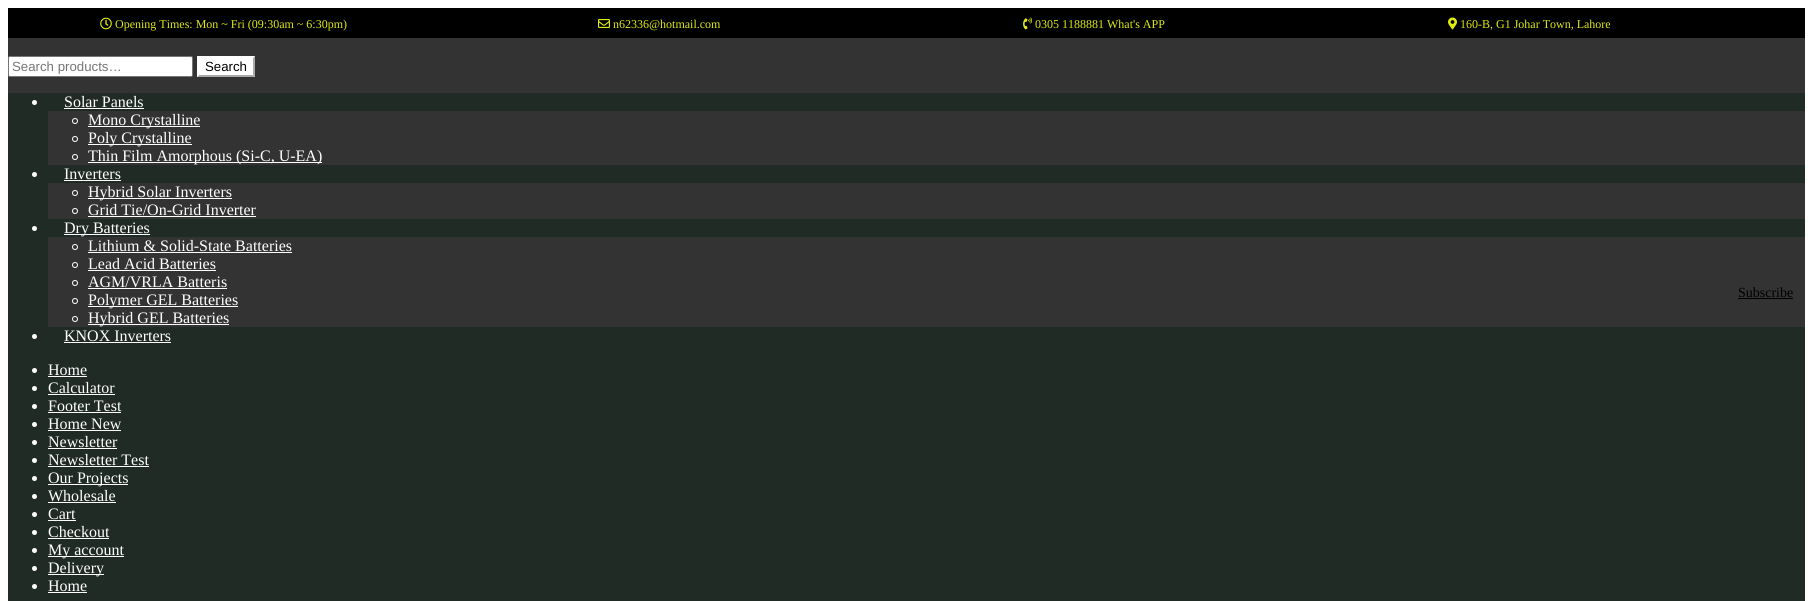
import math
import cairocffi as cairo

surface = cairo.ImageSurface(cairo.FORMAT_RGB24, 1813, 601)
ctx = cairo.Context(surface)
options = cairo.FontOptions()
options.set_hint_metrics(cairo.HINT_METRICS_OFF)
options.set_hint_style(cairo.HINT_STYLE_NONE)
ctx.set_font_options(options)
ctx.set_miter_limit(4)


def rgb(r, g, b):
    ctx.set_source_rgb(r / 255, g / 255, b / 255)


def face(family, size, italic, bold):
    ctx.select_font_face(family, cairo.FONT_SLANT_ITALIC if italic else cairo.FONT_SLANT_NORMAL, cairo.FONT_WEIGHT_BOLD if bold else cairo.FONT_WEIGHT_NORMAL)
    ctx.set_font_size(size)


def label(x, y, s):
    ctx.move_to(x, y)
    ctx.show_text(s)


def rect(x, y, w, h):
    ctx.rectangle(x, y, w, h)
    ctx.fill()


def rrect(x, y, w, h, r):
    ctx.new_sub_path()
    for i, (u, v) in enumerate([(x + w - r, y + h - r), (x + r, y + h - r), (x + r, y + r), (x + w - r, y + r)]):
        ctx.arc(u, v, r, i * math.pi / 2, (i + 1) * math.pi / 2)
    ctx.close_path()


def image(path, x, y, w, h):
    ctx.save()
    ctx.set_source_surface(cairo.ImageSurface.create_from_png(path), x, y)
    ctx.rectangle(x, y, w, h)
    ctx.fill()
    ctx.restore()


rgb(255, 255, 255)
ctx.paint()
rgb(0, 0, 0)
rect(8, 8, 1797, 30)
image('image0.png', 100, 17, 12, 13)
face('Liberation Serif', 12, 0, 0)
rgb(223, 234, 16)
label(115, 28, 'Opening Times: Mon ~ Fri (09:30am ~ 6:30pm)')
image('image1.png', 598, 19, 12, 9)
label(613, 28, 'n62336@hotmail.com')
image('image2.png', 1023, 17, 9, 13)
label(1035, 28, '0305 1188881 What\'s APP')
image('image3.png', 1448, 17, 9, 13)
label(1460, 28, '160-B, G1 Johar Town, Lahore')
rgb(51, 51, 51)
rect(8, 38, 1797, 55)
rgb(255, 255, 255)
rrect(8.5, 56.5, 184, 20, 1.5)
ctx.fill_preserve()
rgb(118, 118, 118)
ctx.set_line_width(1)
ctx.stroke()
face('Liberation Sans', 13.25, 0, 0)
rgb(117, 117, 117)
label(12, 71, 'Search products…')
rgb(255, 255, 255)
rect(197, 56, 58, 21)
rgb(170, 170, 170)
ctx.new_path()
ctx.move_to(255, 56)
ctx.line_to(255, 77)
ctx.line_to(253, 75)
ctx.line_to(253, 58)
ctx.close_path()
ctx.fill()
ctx.new_path()
ctx.move_to(255, 77)
ctx.line_to(197, 77)
ctx.line_to(199, 75)
ctx.line_to(253, 75)
ctx.close_path()
ctx.fill()
rgb(255, 255, 255)
ctx.new_path()
ctx.move_to(197, 77)
ctx.line_to(197, 56)
ctx.line_to(199, 58)
ctx.line_to(199, 75)
ctx.close_path()
ctx.fill()
rgb(0, 0, 0)
label(205, 71, 'Search')
rgb(32, 43, 38)
rect(8, 93, 1797, 508)
rgb(255, 255, 255)
ctx.new_path()
ctx.arc(34.5, 102.5, 2.5, 0, 2 * math.pi)
ctx.fill()
face('Liberation Serif', 16, 0, 0)
label(64, 107, 'Solar Panels')
rect(64, 108, 80, 1)
rgb(51, 51, 51)
rect(48, 111, 1757, 54)
ctx.new_path()
ctx.arc(75, 121, 2.5, 0, 2 * math.pi)
rgb(255, 255, 255)
ctx.stroke()
rect(88, 126, 112, 1)
label(88, 125, 'Mono Crystalline')
ctx.new_path()
ctx.arc(75, 139, 2.5, 0, 2 * math.pi)
ctx.stroke()
rect(88, 144, 104, 1)
label(88, 143, 'Poly Crystalline')
ctx.new_path()
ctx.arc(75, 157, 2.5, 0, 2 * math.pi)
ctx.stroke()
rect(88, 162, 234, 1)
label(88, 161, 'Thin Film Amorphous (Si-C, U-EA)')
ctx.new_path()
ctx.arc(34.5, 174.5, 2.5, 0, 2 * math.pi)
ctx.fill()
label(64, 179, 'Inverters')
rect(64, 180, 57, 1)
rgb(51, 51, 51)
rect(48, 183, 1757, 36)
ctx.new_path()
ctx.arc(75, 193, 2.5, 0, 2 * math.pi)
rgb(255, 255, 255)
ctx.stroke()
rect(88, 198, 144, 1)
label(88, 197, 'Hybrid Solar Inverters')
ctx.new_path()
ctx.arc(75, 211, 2.5, 0, 2 * math.pi)
ctx.stroke()
label(88, 215, 'Grid Tie/On-Grid Inverter')
rect(88, 216, 168, 1)
ctx.new_path()
ctx.arc(34.5, 228.5, 2.5, 0, 2 * math.pi)
ctx.fill()
rect(64, 234, 86, 1)
label(64, 233, 'Dry Batteries')
rgb(51, 51, 51)
rect(48, 237, 1757, 90)
ctx.new_path()
ctx.arc(75, 247, 2.5, 0, 2 * math.pi)
rgb(255, 255, 255)
ctx.stroke()
label(88, 251, 'Lithium & Solid-State Batteries')
rect(88, 252, 204, 1)
ctx.new_path()
ctx.arc(75, 265, 2.5, 0, 2 * math.pi)
ctx.stroke()
label(88, 269, 'Lead Acid Batteries')
rect(88, 270, 128, 1)
ctx.new_path()
ctx.arc(75, 283, 2.5, 0, 2 * math.pi)
ctx.stroke()
label(88, 287, 'AGM/VRLA Batteris')
rect(88, 288, 139, 1)
ctx.new_path()
ctx.arc(75, 301, 2.5, 0, 2 * math.pi)
ctx.stroke()
rect(88, 306, 150, 1)
label(88, 305, 'Polymer GEL Batteries')
ctx.new_path()
ctx.arc(75, 319, 2.5, 0, 2 * math.pi)
ctx.stroke()
rect(88, 324, 141, 1)
label(88, 323, 'Hybrid GEL Batteries')
ctx.new_path()
ctx.arc(34.5, 336.5, 2.5, 0, 2 * math.pi)
ctx.fill()
label(64, 341, 'KNOX Inverters')
rect(64, 342, 107, 1)
ctx.new_path()
ctx.arc(34.5, 370.5, 2.5, 0, 2 * math.pi)
ctx.fill()
label(48, 375, 'Home')
rect(48, 376, 39, 1)
ctx.new_path()
ctx.arc(34.5, 388.5, 2.5, 0, 2 * math.pi)
ctx.fill()
label(48, 393, 'Calculator')
rect(48, 394, 67, 1)
ctx.new_path()
ctx.arc(34.5, 406.5, 2.5, 0, 2 * math.pi)
ctx.fill()
label(48, 411, 'Footer Test')
rect(48, 412, 73, 1)
ctx.new_path()
ctx.arc(34.5, 424.5, 2.5, 0, 2 * math.pi)
ctx.fill()
label(48, 429, 'Home New')
rect(48, 430, 73, 1)
ctx.new_path()
ctx.arc(34.5, 442.5, 2.5, 0, 2 * math.pi)
ctx.fill()
label(48, 447, 'Newsletter')
rect(48, 448, 69, 1)
ctx.new_path()
ctx.arc(34.5, 460.5, 2.5, 0, 2 * math.pi)
ctx.fill()
label(48, 465, 'Newsletter Test')
rect(48, 466, 101, 1)
ctx.new_path()
ctx.arc(34.5, 478.5, 2.5, 0, 2 * math.pi)
ctx.fill()
rect(48, 484, 80, 1)
label(48, 483, 'Our Projects')
ctx.new_path()
ctx.arc(34.5, 496.5, 2.5, 0, 2 * math.pi)
ctx.fill()
label(48, 501, 'Wholesale')
rect(48, 502, 68, 1)
ctx.new_path()
ctx.arc(34.5, 514.5, 2.5, 0, 2 * math.pi)
ctx.fill()
label(48, 519, 'Cart')
rect(48, 520, 28, 1)
ctx.new_path()
ctx.arc(34.5, 532.5, 2.5, 0, 2 * math.pi)
ctx.fill()
label(48, 537, 'Checkout')
rect(48, 538, 61, 1)
ctx.new_path()
ctx.arc(34.5, 550.5, 2.5, 0, 2 * math.pi)
ctx.fill()
rect(48, 556, 76, 1)
label(48, 555, 'My account')
ctx.new_path()
ctx.arc(34.5, 568.5, 2.5, 0, 2 * math.pi)
ctx.fill()
rect(48, 574, 56, 1)
label(48, 573, 'Delivery')
ctx.new_path()
ctx.arc(34.5, 586.5, 2.5, 0, 2 * math.pi)
ctx.fill()
label(48, 591, 'Home')
rect(48, 592, 39, 1)
face('Liberation Serif', 14, 0, 0)
rgb(0, 0, 0)
label(1738, 297, 'Subscribe')
rect(1738, 298, 55, 1)
surface.write_to_png('render.png')
